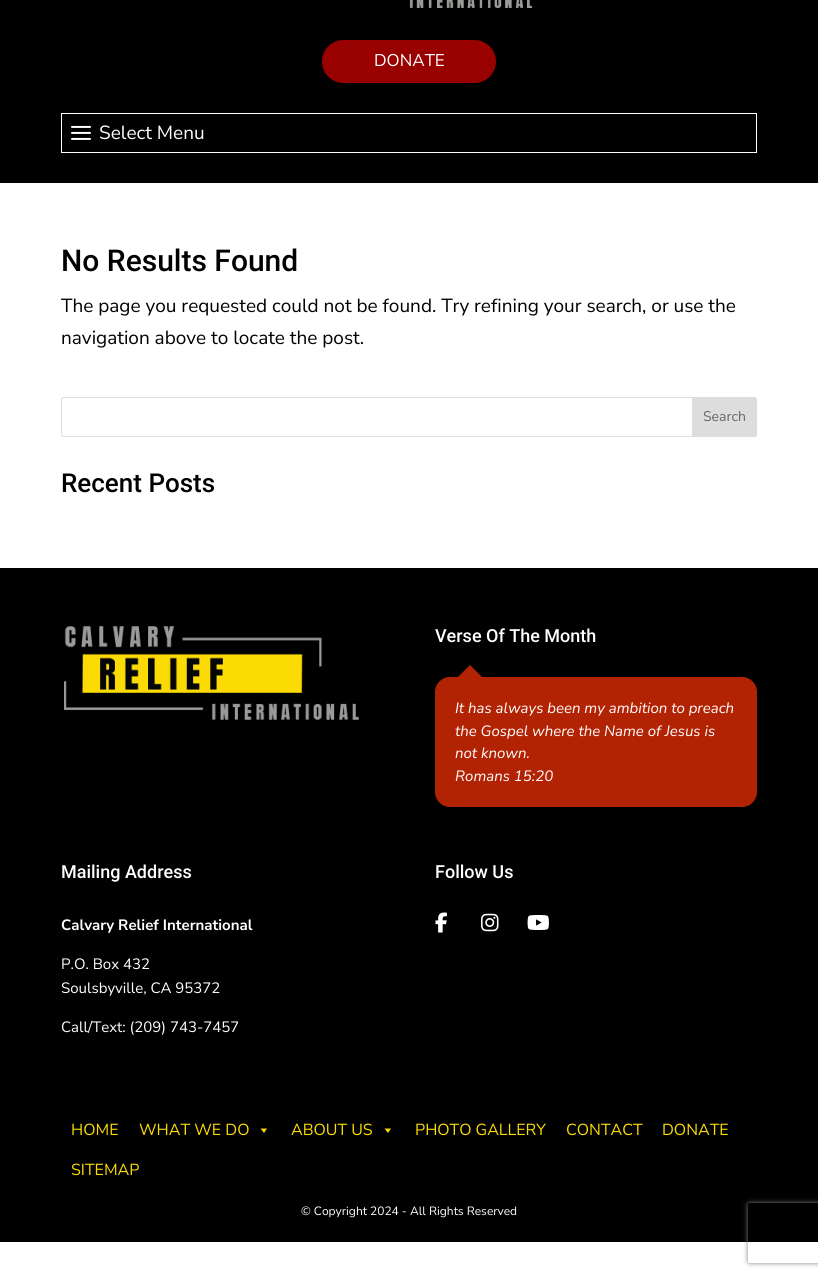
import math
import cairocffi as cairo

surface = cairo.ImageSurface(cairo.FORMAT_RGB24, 818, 1277)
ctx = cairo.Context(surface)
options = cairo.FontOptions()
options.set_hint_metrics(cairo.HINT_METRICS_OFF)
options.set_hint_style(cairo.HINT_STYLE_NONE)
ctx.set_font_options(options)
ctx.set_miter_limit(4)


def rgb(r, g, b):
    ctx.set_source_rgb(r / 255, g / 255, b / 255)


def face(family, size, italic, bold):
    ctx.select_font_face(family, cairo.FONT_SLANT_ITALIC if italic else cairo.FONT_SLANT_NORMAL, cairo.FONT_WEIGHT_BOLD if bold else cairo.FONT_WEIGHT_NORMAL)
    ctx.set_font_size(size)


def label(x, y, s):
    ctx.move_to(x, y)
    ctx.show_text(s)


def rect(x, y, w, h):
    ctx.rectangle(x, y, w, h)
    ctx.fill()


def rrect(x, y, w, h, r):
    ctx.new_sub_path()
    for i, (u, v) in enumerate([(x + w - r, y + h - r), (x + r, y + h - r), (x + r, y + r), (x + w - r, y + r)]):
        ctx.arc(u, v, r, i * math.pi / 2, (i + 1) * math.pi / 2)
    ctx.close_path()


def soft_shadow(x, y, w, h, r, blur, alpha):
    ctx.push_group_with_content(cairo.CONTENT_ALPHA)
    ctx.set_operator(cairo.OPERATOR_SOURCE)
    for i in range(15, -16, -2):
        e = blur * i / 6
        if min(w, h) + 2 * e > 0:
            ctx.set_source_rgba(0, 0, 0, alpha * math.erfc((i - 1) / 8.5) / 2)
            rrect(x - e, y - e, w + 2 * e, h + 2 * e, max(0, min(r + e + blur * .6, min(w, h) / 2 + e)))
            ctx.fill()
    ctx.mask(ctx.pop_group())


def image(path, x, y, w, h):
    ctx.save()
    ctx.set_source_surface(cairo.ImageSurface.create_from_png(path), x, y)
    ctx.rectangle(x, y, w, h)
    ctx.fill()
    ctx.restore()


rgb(255, 255, 255)
ctx.paint()
rgb(0, 0, 0)
rect(0, 0, 818, 183)
image('image0.png', 409, 0, 123, 8)
rgb(153, 0, 0)
rrect(323, 41, 172, 41, 20.5)
ctx.fill_preserve()
ctx.stroke()
face('Nunito Sans', 17, 0, 0)
rgb(255, 255, 255)
label(374, 66, 'DONATE')
ctx.rectangle(61.5, 113.5, 695, 39)
ctx.set_line_width(1)
ctx.stroke()
image('image1.png', 71, 125, 20, 15)
face('Nunito Sans', 19, 0, 0)
label(99, 139, 'Select Menu')
face('Roboto Medium', 30, 0, 0)
rgb(0, 0, 0)
label(61, 271, 'No Results Found')
face('Nunito Sans', 19, 0, 0)
label(61, 312, 'The page you requested could not be found. Try refining your search, or use the')
label(61, 344, 'navigation above to locate the post.')
rrect(61.5, 397.5, 695, 39, 2.5)
rgb(221, 221, 221)
ctx.stroke()
ctx.new_path()
ctx.move_to(692.5, 397.5)
ctx.line_to(754, 397.5)
ctx.curve_to(755.5, 397.5, 756.5, 398.5, 756.5, 400)
ctx.line_to(756.5, 434)
ctx.curve_to(756.5, 435.5, 755.5, 436.5, 754, 436.5)
ctx.line_to(692.5, 436.5)
ctx.close_path()
ctx.fill_preserve()
ctx.stroke()
face('Nunito Sans', 14, 0, 0)
rgb(102, 102, 102)
label(703, 421, 'Search')
face('Roboto Medium', 26, 0, 0)
rgb(0, 0, 0)
label(61, 492, 'Recent Posts')
rect(0, 568, 818, 674)
image('image2.png', 64, 626, 295, 94)
face('Roboto Medium', 18, 0, 0)
rgb(255, 255, 255)
label(435, 642, 'Verse Of The Month')
rgb(178, 35, 3)
rrect(435, 677, 322, 130, 15)
ctx.fill()
ctx.new_path()
ctx.move_to(482, 677)
ctx.line_to(458, 677)
ctx.line_to(470, 665)
ctx.close_path()
ctx.fill()
face('Nunito Sans', 15, 1, 0)
rgb(255, 255, 255)
label(455, 713, 'It has always been my ambition to preach')
label(455, 736, 'the Gospel where the Name of Jesus is')
label(455, 758, 'not known.')
label(455, 781, 'Romans 15:20')
face('Roboto Medium', 18, 0, 0)
label(61, 878, 'Mailing Address')
face('Nunito Sans', 15, 0, 1)
label(61, 930, 'Calvary Relief International')
face('Nunito Sans', 15, 0, 0)
label(61, 969, 'P.O. Box 432')
label(61, 993, 'Soulsbyville, CA 95372')
label(61, 1032, 'Call/Text: (209) 743-7457')
face('Roboto Medium', 18, 0, 0)
label(435, 878, 'Follow Us')
image('image3.png', 435, 912, 12, 21)
image('image4.png', 481, 913, 18, 19)
image('image5.png', 527, 915, 22, 15)
face('Nunito Sans', 16, 0, 0)
rgb(252, 219, 5)
label(71, 1135, 'HOME')
label(139, 1135, 'WHAT WE DO')
ctx.new_path()
ctx.move_to(267, 1128.5)
ctx.line_to(264, 1133)
ctx.line_to(260.5, 1128.5)
ctx.close_path()
ctx.fill()
label(291, 1135, 'ABOUT US')
ctx.new_path()
ctx.move_to(391, 1128.5)
ctx.line_to(388, 1133)
ctx.line_to(384.5, 1128.5)
ctx.close_path()
ctx.fill()
label(415, 1135, 'PHOTO GALLERY')
label(566, 1135, 'CONTACT')
label(662, 1135, 'DONATE')
label(71, 1175, 'SITEMAP')
face('Nunito Sans', 12, 0, 0)
rgb(255, 255, 255)
label(301, 1215, '© Copyright 2024 - All Rights Reserved')
ctx.save()
ctx.set_fill_rule(cairo.FILL_RULE_EVEN_ODD)
ctx.new_path()
ctx.move_to(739, 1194)
ctx.line_to(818, 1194)
ctx.line_to(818, 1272)
ctx.line_to(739, 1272)
ctx.close_path()
ctx.move_to(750, 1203)
ctx.line_to(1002, 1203)
ctx.curve_to(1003, 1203, 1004, 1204, 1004, 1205)
ctx.line_to(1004, 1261)
ctx.curve_to(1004, 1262, 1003, 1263, 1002, 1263)
ctx.line_to(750, 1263)
ctx.curve_to(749, 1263, 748, 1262, 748, 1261)
ctx.line_to(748, 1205)
ctx.curve_to(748, 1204, 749, 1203, 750, 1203)
ctx.close_path()
ctx.clip()
rgb(128, 128, 128)
soft_shadow(748, 1203, 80, 60, 2, 2.5, 1)
ctx.restore()
surface.write_to_png('render.png')
